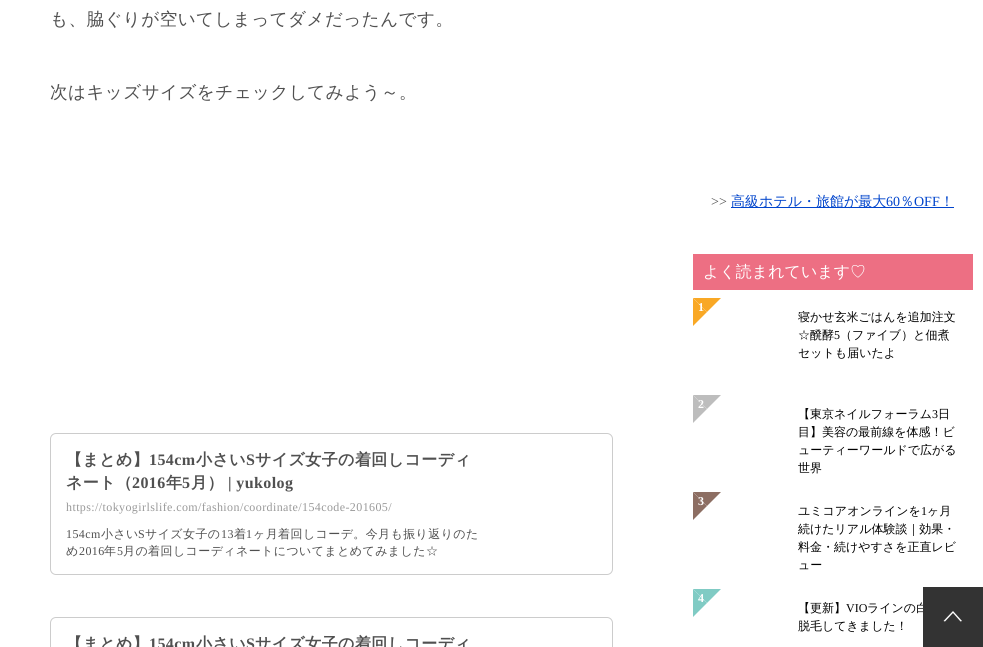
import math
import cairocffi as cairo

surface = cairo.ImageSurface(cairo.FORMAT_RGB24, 983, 647)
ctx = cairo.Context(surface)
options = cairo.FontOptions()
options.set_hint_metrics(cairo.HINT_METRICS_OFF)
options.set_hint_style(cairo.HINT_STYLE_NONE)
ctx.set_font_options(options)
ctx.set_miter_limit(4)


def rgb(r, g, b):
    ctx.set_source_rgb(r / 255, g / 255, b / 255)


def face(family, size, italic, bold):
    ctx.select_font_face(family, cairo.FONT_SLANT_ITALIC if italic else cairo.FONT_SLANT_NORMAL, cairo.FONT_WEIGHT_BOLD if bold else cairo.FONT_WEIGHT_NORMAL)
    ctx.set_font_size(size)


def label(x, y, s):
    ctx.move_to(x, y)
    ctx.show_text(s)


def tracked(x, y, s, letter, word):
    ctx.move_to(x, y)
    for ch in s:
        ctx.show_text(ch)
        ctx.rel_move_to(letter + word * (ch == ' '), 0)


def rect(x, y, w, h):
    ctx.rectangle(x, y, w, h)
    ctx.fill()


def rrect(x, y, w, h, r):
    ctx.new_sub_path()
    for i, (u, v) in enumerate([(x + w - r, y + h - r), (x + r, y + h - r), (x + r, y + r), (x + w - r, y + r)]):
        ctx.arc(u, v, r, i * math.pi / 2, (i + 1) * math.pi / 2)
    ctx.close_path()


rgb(255, 255, 255)
ctx.paint()
face('WenQuanYi Zen Hei Medium', 17.6, 0, 0)
rgb(80, 80, 80)
tracked(50, 25, 'も、脇ぐりが空いてしまってダメだったんです。', 0.4, 0)
tracked(50, 98, '次はキッズサイズをチェックしてみよう～。', 0.4, 0)
rrect(50.5, 433.5, 562, 141, 5.5)
rgb(204, 204, 204)
ctx.set_line_width(1)
ctx.stroke()
face('WenQuanYi Zen Hei', 16, 0, 1)
rgb(80, 80, 80)
tracked(66, 465, '【まとめ】', 0.4, 0)
face('Liberation Serif', 16, 0, 1)
tracked(149, 465, '154cm', 0.4, 0)
face('WenQuanYi Zen Hei', 16, 0, 1)
tracked(196, 465, '小さい', 0.4, 0)
face('Liberation Serif', 16, 0, 1)
tracked(246, 465, 'S', 0.4, 0)
face('WenQuanYi Zen Hei', 16, 0, 1)
tracked(255, 465, 'サイズ女子の着回しコーディ', 0.4, 0)
tracked(66, 488, 'ネート（', 0.4, 0)
face('Liberation Serif', 16, 0, 1)
tracked(132, 488, '2016', 0.4, 0)
face('WenQuanYi Zen Hei', 16, 0, 1)
tracked(166, 488, '年', 0.4, 0)
face('Liberation Serif', 16, 0, 1)
tracked(182, 488, '5', 0.4, 0)
face('WenQuanYi Zen Hei', 16, 0, 1)
tracked(191, 488, '月）', 0.4, 0)
face('Liberation Serif', 16, 0, 1)
tracked(228, 488, '| yukolog', 0.4, 0)
face('Liberation Serif', 12, 0, 0)
rgb(153, 153, 153)
tracked(66, 511, 'https://tokyogirlslife.com/fashion/coordinate/154code-201605/', 0.4, 0)
rgb(80, 80, 80)
tracked(66, 538, '154cm', 0.4, 0)
face('WenQuanYi Zen Hei Medium', 12, 0, 0)
tracked(101, 538, '小さい', 0.4, 0)
face('Liberation Serif', 12, 0, 0)
tracked(138, 538, 'S', 0.4, 0)
face('WenQuanYi Zen Hei Medium', 12, 0, 0)
tracked(145, 538, 'サイズ女子の', 0.4, 0)
face('Liberation Serif', 12, 0, 0)
tracked(221, 538, '13', 0.4, 0)
face('WenQuanYi Zen Hei Medium', 12, 0, 0)
tracked(234, 538, '着', 0.4, 0)
face('Liberation Serif', 12, 0, 0)
tracked(246, 538, '1', 0.4, 0)
face('WenQuanYi Zen Hei Medium', 12, 0, 0)
tracked(253, 538, 'ヶ月着回しコーデ。今月も振り返りのた', 0.4, 0)
tracked(66, 555, 'め', 0.4, 0)
face('Liberation Serif', 12, 0, 0)
tracked(79, 555, '2016', 0.4, 0)
face('WenQuanYi Zen Hei Medium', 12, 0, 0)
tracked(104, 555, '年', 0.4, 0)
face('Liberation Serif', 12, 0, 0)
tracked(117, 555, '5', 0.4, 0)
face('WenQuanYi Zen Hei Medium', 12, 0, 0)
tracked(123, 555, '月の着回しコーディネートについてまとめてみました☆', 0.4, 0)
rrect(50.5, 617.5, 562, 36, 5.5)
rgb(204, 204, 204)
ctx.stroke()
face('WenQuanYi Zen Hei', 16, 0, 1)
rgb(80, 80, 80)
tracked(66, 649, '【まとめ】', 0.4, 0)
face('Liberation Serif', 16, 0, 1)
tracked(149, 649, '154cm', 0.4, 0)
face('WenQuanYi Zen Hei', 16, 0, 1)
tracked(196, 649, '小さい', 0.4, 0)
face('Liberation Serif', 16, 0, 1)
tracked(246, 649, 'S', 0.4, 0)
face('WenQuanYi Zen Hei', 16, 0, 1)
tracked(255, 649, 'サイズ女子の着回しコーディ', 0.4, 0)
face('Liberation Serif', 14, 0, 0)
label(711, 206, '>>')
rgb(0, 68, 204)
rect(731, 207, 223, 1)
face('WenQuanYi Zen Hei Medium', 14, 0, 0)
label(731, 206, '高級ホテル・旅館が最大')
face('Liberation Serif', 14, 0, 0)
label(886, 206, '60')
face('WenQuanYi Zen Hei Medium', 14, 0, 0)
label(900, 206, '％')
face('Liberation Serif', 14, 0, 0)
label(914, 206, 'OFF')
face('WenQuanYi Zen Hei Medium', 14, 0, 0)
label(940, 206, '！')
rgb(237, 111, 131)
rect(693, 254, 280, 36)
face('WenQuanYi Zen Hei Medium', 16, 0, 0)
rgb(255, 255, 255)
label(703, 277, 'よく読まれています♡')
rgb(249, 168, 37)
ctx.new_path()
ctx.move_to(693, 298)
ctx.line_to(721, 298)
ctx.line_to(707, 312)
ctx.close_path()
ctx.fill()
ctx.new_path()
ctx.move_to(693, 326)
ctx.line_to(693, 298)
ctx.line_to(707, 312)
ctx.close_path()
ctx.fill()
face('Liberation Serif', 12, 0, 1)
rgb(255, 255, 255)
label(698, 311, '1')
face('WenQuanYi Zen Hei Medium', 12, 0, 0)
rgb(0, 0, 0)
label(798, 321, '寝かせ玄米ごはんを追加注文')
label(798, 339, '☆醗酵')
face('Liberation Serif', 12, 0, 0)
label(834, 339, '5')
face('WenQuanYi Zen Hei Medium', 12, 0, 0)
label(840, 339, '（ファイブ）と佃煮')
label(798, 357, 'セットも届いたよ')
rgb(189, 189, 189)
ctx.new_path()
ctx.move_to(693, 395)
ctx.line_to(721, 395)
ctx.line_to(707, 409)
ctx.close_path()
ctx.fill()
ctx.new_path()
ctx.move_to(693, 423)
ctx.line_to(693, 395)
ctx.line_to(707, 409)
ctx.close_path()
ctx.fill()
face('Liberation Serif', 12, 0, 1)
rgb(255, 255, 255)
label(698, 408, '2')
face('WenQuanYi Zen Hei Medium', 12, 0, 0)
rgb(0, 0, 0)
label(798, 418, '【東京ネイルフォーラム')
face('Liberation Serif', 12, 0, 0)
label(932, 418, '3')
face('WenQuanYi Zen Hei Medium', 12, 0, 0)
label(938, 418, '日')
label(798, 436, '目】美容の最前線を体感！ビ')
label(798, 454, 'ューティーワールドで広がる')
label(798, 472, '世界')
rgb(141, 110, 99)
ctx.new_path()
ctx.move_to(693, 492)
ctx.line_to(721, 492)
ctx.line_to(707, 506)
ctx.close_path()
ctx.fill()
ctx.new_path()
ctx.move_to(693, 520)
ctx.line_to(693, 492)
ctx.line_to(707, 506)
ctx.close_path()
ctx.fill()
face('Liberation Serif', 12, 0, 1)
rgb(255, 255, 255)
label(698, 505, '3')
face('WenQuanYi Zen Hei Medium', 12, 0, 0)
rgb(0, 0, 0)
label(798, 515, 'ユミコアオンラインを')
face('Liberation Serif', 12, 0, 0)
label(921, 515, '1')
face('WenQuanYi Zen Hei Medium', 12, 0, 0)
label(927, 515, 'ヶ月')
label(798, 533, '続けたリアル体験談｜効果・')
label(798, 551, '料金・続けやすさを正直レビ')
label(798, 569, 'ュー')
rgb(128, 203, 196)
ctx.new_path()
ctx.move_to(693, 589)
ctx.line_to(721, 589)
ctx.line_to(707, 603)
ctx.close_path()
ctx.fill()
ctx.new_path()
ctx.move_to(693, 617)
ctx.line_to(693, 589)
ctx.line_to(707, 603)
ctx.close_path()
ctx.fill()
face('Liberation Serif', 12, 0, 1)
rgb(255, 255, 255)
label(698, 602, '4')
face('WenQuanYi Zen Hei Medium', 12, 0, 0)
rgb(0, 0, 0)
label(798, 612, '【更新】')
face('Liberation Serif', 12, 0, 0)
label(846, 612, 'VIO')
face('WenQuanYi Zen Hei Medium', 12, 0, 0)
label(867, 612, 'ラインの白')
label(798, 630, '脱毛してきました！')
rgb(51, 51, 51)
rect(923, 587, 60, 60)
rgb(255, 255, 255)
ctx.new_path()
ctx.move_to(953, 611)
ctx.line_to(962, 621)
ctx.line_to(960.5, 621.5)
ctx.line_to(953, 613)
ctx.line_to(945, 621.5)
ctx.line_to(943.5, 621)
ctx.close_path()
ctx.fill()
surface.write_to_png('render.png')
